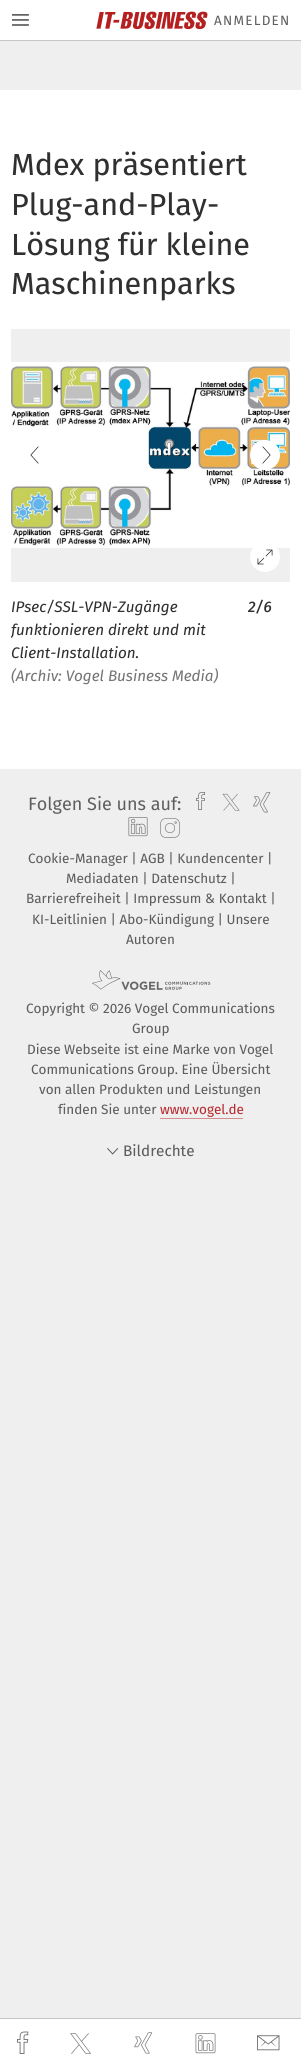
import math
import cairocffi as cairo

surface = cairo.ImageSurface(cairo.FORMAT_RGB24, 301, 2068)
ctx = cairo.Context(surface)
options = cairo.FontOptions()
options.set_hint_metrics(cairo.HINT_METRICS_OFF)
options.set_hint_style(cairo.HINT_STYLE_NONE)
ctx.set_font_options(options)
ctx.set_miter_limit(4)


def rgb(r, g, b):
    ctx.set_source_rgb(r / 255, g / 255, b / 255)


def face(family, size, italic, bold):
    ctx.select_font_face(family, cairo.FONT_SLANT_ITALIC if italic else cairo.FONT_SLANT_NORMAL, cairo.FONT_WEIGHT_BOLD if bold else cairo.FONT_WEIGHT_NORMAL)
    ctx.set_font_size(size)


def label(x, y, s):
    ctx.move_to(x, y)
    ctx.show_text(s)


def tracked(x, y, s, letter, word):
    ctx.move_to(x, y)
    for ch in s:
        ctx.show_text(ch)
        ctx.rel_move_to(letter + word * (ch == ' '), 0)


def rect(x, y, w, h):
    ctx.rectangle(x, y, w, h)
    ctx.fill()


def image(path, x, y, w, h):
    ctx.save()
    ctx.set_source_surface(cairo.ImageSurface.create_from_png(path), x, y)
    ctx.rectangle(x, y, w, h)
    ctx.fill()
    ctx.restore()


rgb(239, 239, 239)
ctx.paint()
rgb(255, 255, 255)
rect(0, 90, 301, 679)
rect(0, 0, 301, 40)
rgb(198, 198, 198)
rect(0, 40, 301, 1)
image('image0.png', 12, 14, 17, 12)
image('image1.png', 96, 11, 112, 19)
face('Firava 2', 13.5, 0, 0)
rgb(94, 94, 94)
tracked(214, 25, 'ANMELDEN', 1.25, 0)
face('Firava', 30.5, 0, 0)
rgb(48, 48, 48)
label(11, 175, 'Mdex präsentiert')
label(11, 215, 'Plug-and-Play-')
label(11, 255, 'Lösung für kleine')
label(11, 294, 'Maschinenparks')
rgb(239, 239, 239)
rect(11, 329, 279, 253)
image('image2.png', 11, 362, 279, 186)
image('image3.png', 30, 446, 9, 18)
image('image4.png', 250, 440, 30, 30)
image('image5.png', 250, 548, 30, 24)
face('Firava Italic', 15.25, 1, 0)
rgb(48, 48, 48)
label(11, 612, 'IPsec/SSL-VPN-Zugänge')
ctx.save()
ctx.rectangle(11, 329, 279, 359)
ctx.clip()
label(11, 635, 'funktionieren direkt und mit')
ctx.restore()
label(11, 658, 'Client-Installation.')
rgb(118, 118, 118)
label(11, 681, '(Archiv: Vogel Business Media)')
face('Firava Italic Medium', 15.25, 1, 0)
rgb(48, 48, 48)
label(248, 612, '2/6')
rgb(255, 255, 255)
rect(0, 2019, 301, 49)
rgb(198, 198, 198)
rect(0, 2018, 301, 1)
image('image6.png', 17, 2031, 12, 23)
image('image7.png', 70, 2033, 21, 21)
image('image8.png', 134, 2032, 19, 22)
image('image9.png', 195, 2033, 21, 21)
image('image10.png', 257, 2035, 23, 16)
face('Firava 2', 18, 0, 0)
rgb(94, 94, 94)
label(28, 810, 'Folgen Sie uns auf:')
image('image11.png', 196, 792, 9, 18)
image('image12.png', 222, 793, 18, 18)
image('image13.png', 253, 792, 18, 21)
image('image14.png', 128, 817, 20, 20)
image('image15.png', 160, 818, 20, 20)
face('Firava', 13.5, 0, 0)
label(28, 863, 'Cookie-Manager | AGB | Kundencenter |')
label(66, 883, 'Mediadaten | Datenschutz |')
label(26, 903, 'Barrierefreiheit | Impressum & Kontakt |')
label(32, 924, 'KI-Leitlinien | Abo-Kündigung | Unsere')
label(126, 944, 'Autoren')
image('image16.png', 91, 970, 120, 20)
label(26, 1013, 'Copyright © 2026 Vogel Communications')
label(132, 1033, 'Group')
label(27, 1054, 'Diese Webseite ist eine Marke von Vogel')
label(31, 1074, 'Communications Group. Eine Übersicht')
label(39, 1094, 'von allen Produkten und Leistungen')
label(58, 1114, 'finden Sie unter')
rgb(185, 42, 49)
label(160, 1114, 'www.vogel.de')
rgb(212, 141, 144)
rect(160, 1118, 83, 1)
image('image17.png', 107, 1148, 12, 7)
face('Firava', 15.25, 0, 0)
rgb(94, 94, 94)
label(123, 1156, 'Bildrechte')
surface.write_to_png('render.png')
